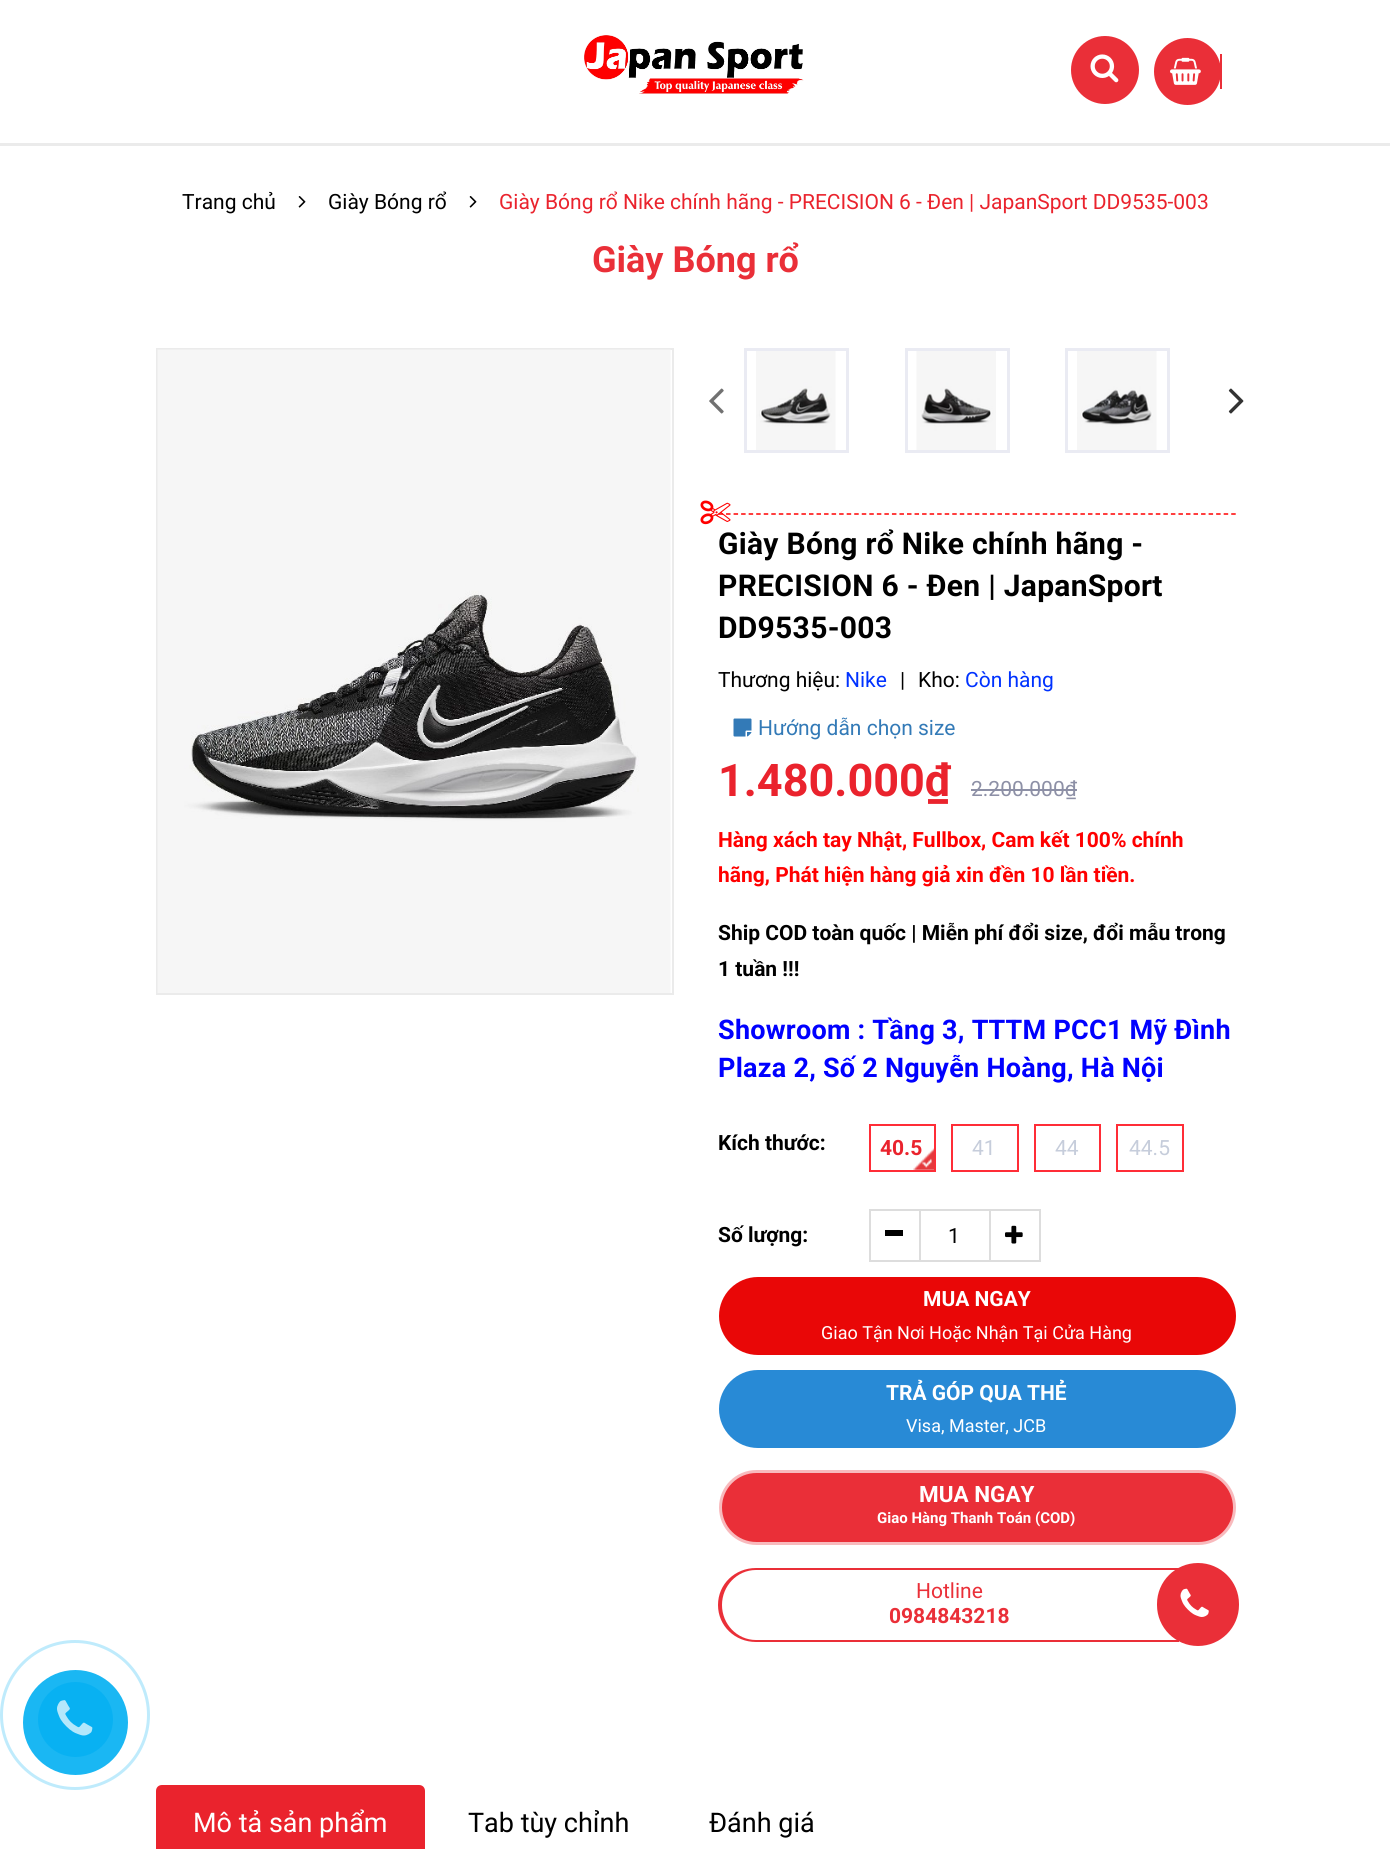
import math
import cairocffi as cairo

surface = cairo.ImageSurface(cairo.FORMAT_RGB24, 1390, 1849)
ctx = cairo.Context(surface)
options = cairo.FontOptions()
options.set_hint_metrics(cairo.HINT_METRICS_OFF)
options.set_hint_style(cairo.HINT_STYLE_NONE)
ctx.set_font_options(options)
ctx.set_miter_limit(4)


def rgb(r, g, b):
    ctx.set_source_rgb(r / 255, g / 255, b / 255)


def face(family, size, italic, bold):
    ctx.select_font_face(family, cairo.FONT_SLANT_ITALIC if italic else cairo.FONT_SLANT_NORMAL, cairo.FONT_WEIGHT_BOLD if bold else cairo.FONT_WEIGHT_NORMAL)
    ctx.set_font_size(size)


def label(x, y, s):
    ctx.move_to(x, y)
    ctx.show_text(s)


def tracked(x, y, s, letter, word):
    ctx.move_to(x, y)
    for ch in s:
        ctx.show_text(ch)
        ctx.rel_move_to(letter + word * (ch == ' '), 0)


def rect(x, y, w, h):
    ctx.rectangle(x, y, w, h)
    ctx.fill()


def rrect(x, y, w, h, r):
    ctx.new_sub_path()
    for i, (u, v) in enumerate([(x + w - r, y + h - r), (x + r, y + h - r), (x + r, y + r), (x + w - r, y + r)]):
        ctx.arc(u, v, r, i * math.pi / 2, (i + 1) * math.pi / 2)
    ctx.close_path()


def image(path, x, y, w, h):
    ctx.save()
    ctx.set_source_surface(cairo.ImageSurface.create_from_png(path), x, y)
    ctx.rectangle(x, y, w, h)
    ctx.fill()
    ctx.restore()


rgb(255, 255, 255)
ctx.paint()
rgb(235, 235, 235)
rect(0, 143, 1390, 3)
image('image0.png', 584, 35, 220, 59)
rgb(234, 47, 56)
ctx.arc(1105, 70, 34, 0, 2 * math.pi)
ctx.fill()
image('image1.png', 1090, 54, 29, 29)
ctx.arc(1187.5, 71.5, 33.5, 0, 2 * math.pi)
ctx.fill()
rect(1220, 54, 2, 35)
image('image2.png', 1170, 57, 31, 28)
face('Roboto', 21, 0, 0)
rgb(0, 0, 0)
label(182, 209, 'Trang chủ')
image('image3.png', 298, 196, 8, 12)
label(328, 209, 'Giày Bóng rổ')
image('image3.png', 469, 196, 8, 12)
rgb(234, 35, 45)
label(499, 209, 'Giày Bóng rổ Nike chính hãng - PRECISION 6 - Đen | JapanSport DD9535-003')
face('Roboto', 36, 0, 1)
rgb(234, 47, 56)
label(592, 272, 'Giày Bóng rổ')
ctx.new_path()
ctx.arc(75, 1715, 73.5, 0, 2 * math.pi)
rgb(191, 235, 252)
ctx.set_line_width(3)
ctx.stroke()
rgb(26, 183, 243)
ctx.arc(75.5, 1722.5, 52.5, 0, 2 * math.pi)
ctx.fill()
rgb(8, 177, 242)
ctx.arc(75.5, 1719.5, 37.5, 0, 2 * math.pi)
ctx.fill()
image('image4.png', 57, 1700, 36, 36)
ctx.rectangle(157, 349, 516, 645)
rgb(235, 235, 235)
ctx.set_line_width(2)
ctx.stroke()
image('image5.png', 157, 349, 514, 644)
ctx.rectangle(745.5, 349.5, 102, 102)
rgb(234, 235, 243)
ctx.set_line_width(3)
ctx.stroke()
image('image6.png', 756, 351, 80, 99)
ctx.rectangle(906.5, 349.5, 102, 102)
ctx.stroke()
image('image7.png', 916, 351, 80, 99)
ctx.rectangle(1066.5, 349.5, 102, 102)
ctx.stroke()
image('image8.png', 1077, 351, 80, 99)
image('image9.png', 709, 388, 15, 26)
image('image10.png', 1228, 388, 16, 26)
ctx.new_path()
ctx.move_to(718.5, 514)
ctx.line_to(1236, 514)
rgb(255, 0, 0)
ctx.set_line_width(1.5)
ctx.set_dash([4.5, 3.04])
ctx.stroke()
image('image11.png', 700, 500, 31, 25)
face('Roboto', 30, 0, 1)
rgb(0, 0, 0)
tracked(718, 554, 'Giày Bóng rổ Nike chính hãng -', 0.3, 0)
tracked(718, 596, 'PRECISION 6 - Đen | JapanSport', 0.3, 0)
tracked(718, 638, 'DD9535-003', 0.3, 0)
face('Roboto', 21, 0, 0)
label(718, 687, 'Thương hiệu:')
rgb(0, 50, 255)
label(845, 687, 'Nike')
rgb(0, 0, 0)
label(900, 687, '|')
label(918, 687, 'Kho:')
rgb(0, 50, 255)
label(965, 687, 'Còn hàng')
image('image12.png', 733, 718, 19, 19)
rgb(51, 122, 183)
label(758, 735, 'Hướng dẫn chọn size')
face('Roboto', 45, 0, 1)
rgb(234, 35, 45)
label(718, 796, '1.480.000₫')
face('Roboto', 21, 0, 0)
rgb(141, 144, 166)
label(971, 796, '2.200.000₫')
rect(971, 789, 106, 2)
face('Roboto', 21, 0, 1)
rgb(255, 0, 0)
label(718, 847, 'Hàng xách tay Nhật, Fullbox, Cam kết 100% chính')
label(718, 882, 'hãng, Phát hiện hàng giả xin đền 10 lần tiền.')
rgb(0, 0, 0)
label(718, 940, 'Ship COD toàn quốc | Miễn phí đổi size, đổi mẫu trong')
label(718, 976, '1 tuần !!!')
face('Roboto', 27, 0, 1)
rgb(0, 0, 255)
tracked(718, 1039, 'Showroom : Tầng 3, TTTM PCC1 Mỹ Đình', 0.25, 0)
tracked(718, 1077, 'Plaza 2, Số 2 Nguyễn Hoàng, Hà Nội', 0.25, 0)
face('Roboto', 21, 0, 1)
rgb(0, 0, 0)
label(718, 1150, 'Kích thước:')
ctx.rectangle(870, 1125, 65, 46)
rgb(255, 45, 55)
ctx.set_line_width(2)
ctx.set_dash([])
ctx.stroke()
rgb(234, 35, 45)
label(880, 1155, '40.5')
image('image13.png', 913, 1148, 22, 23)
ctx.rectangle(952, 1125, 66, 46)
rgb(255, 45, 55)
ctx.stroke()
face('Roboto', 21, 0, 0)
rgb(198, 205, 219)
label(972, 1155, '41')
ctx.rectangle(1035, 1125, 65, 46)
rgb(255, 45, 55)
ctx.stroke()
rgb(198, 205, 219)
label(1055, 1155, '44')
ctx.rectangle(1117, 1125, 66, 46)
rgb(255, 45, 55)
ctx.stroke()
rgb(198, 205, 219)
label(1129, 1155, '44.5')
face('Roboto', 21, 0, 1)
rgb(0, 0, 0)
label(718, 1242, 'Số lượng:')
ctx.rectangle(870, 1210, 50, 51)
rgb(221, 221, 221)
ctx.stroke()
rgb(0, 0, 0)
rect(885, 1230, 18, 6)
rgb(221, 221, 221)
rect(921, 1209, 68, 2)
rect(921, 1260, 68, 2)
face('Roboto', 21, 0, 0)
rgb(0, 0, 0)
label(948, 1243, '1')
ctx.rectangle(990, 1210, 50, 51)
rgb(221, 221, 221)
ctx.stroke()
image('image14.png', 1005, 1225, 18, 19)
rgb(233, 7, 7)
rrect(719, 1277, 517, 78, 39)
ctx.fill()
face('Roboto', 21, 0, 1)
rgb(255, 255, 255)
label(923, 1306, 'MUA NGAY')
face('Roboto', 18, 0, 0)
label(821, 1339, 'Giao Tận Nơi Hoặc Nhận Tại Cửa Hàng')
rgb(40, 138, 214)
rrect(719, 1370, 517, 78, 39)
ctx.fill()
face('Roboto', 21, 0, 1)
rgb(255, 255, 255)
label(886, 1400, 'TRẢ GÓP QUA THẺ')
face('Roboto', 18, 0, 0)
label(906, 1432, 'Visa, Master, JCB')
rgb(234, 47, 56)
rrect(720.5, 1471.5, 514, 72, 36)
ctx.fill_preserve()
rgb(248, 186, 189)
ctx.set_line_width(3)
ctx.stroke()
face('Roboto', 22.5, 0, 1)
rgb(255, 255, 255)
label(919, 1502, 'MUA NGAY')
face('Roboto', 15, 0, 1)
label(877, 1523, 'Giao Hàng Thanh Toán (COD)')
rgb(234, 47, 56)
ctx.set_fill_rule(cairo.FILL_RULE_EVEN_ODD)
ctx.new_path()
ctx.move_to(756, 1568)
ctx.line_to(1179, 1568)
ctx.line_to(1179, 1642)
ctx.line_to(756, 1642)
ctx.curve_to(735, 1642, 718, 1626, 718, 1605)
ctx.curve_to(718, 1584, 735, 1568, 756, 1568)
ctx.close_path()
ctx.move_to(756, 1570)
ctx.line_to(1179, 1570)
ctx.line_to(1179, 1640)
ctx.line_to(756, 1640)
ctx.curve_to(737, 1640, 722, 1624, 722, 1605)
ctx.curve_to(722, 1586, 737, 1570, 756, 1570)
ctx.close_path()
ctx.fill()
face('Roboto', 21, 0, 0)
label(916, 1598, 'Hotline')
rrect(1157, 1563, 82, 83, 41)
ctx.fill()
face('Roboto', 21, 0, 1)
label(889, 1623, '0984843218')
image('image15.png', 1180, 1588, 29, 29)
rgb(234, 35, 45)
ctx.new_path()
ctx.move_to(162, 1785)
ctx.line_to(419, 1785)
ctx.curve_to(422.5, 1785, 425, 1787.5, 425, 1791)
ctx.line_to(425, 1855)
ctx.line_to(156, 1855)
ctx.line_to(156, 1791)
ctx.curve_to(156, 1787.5, 158.5, 1785, 162, 1785)
ctx.close_path()
ctx.fill()
face('Roboto', 27, 0, 0)
rgb(255, 255, 255)
label(193, 1832, 'Mô tả sản phẩm')
rgb(0, 0, 0)
label(468, 1832, 'Tab tùy chỉnh')
label(709, 1832, 'Đánh giá')
surface.write_to_png('render.png')
